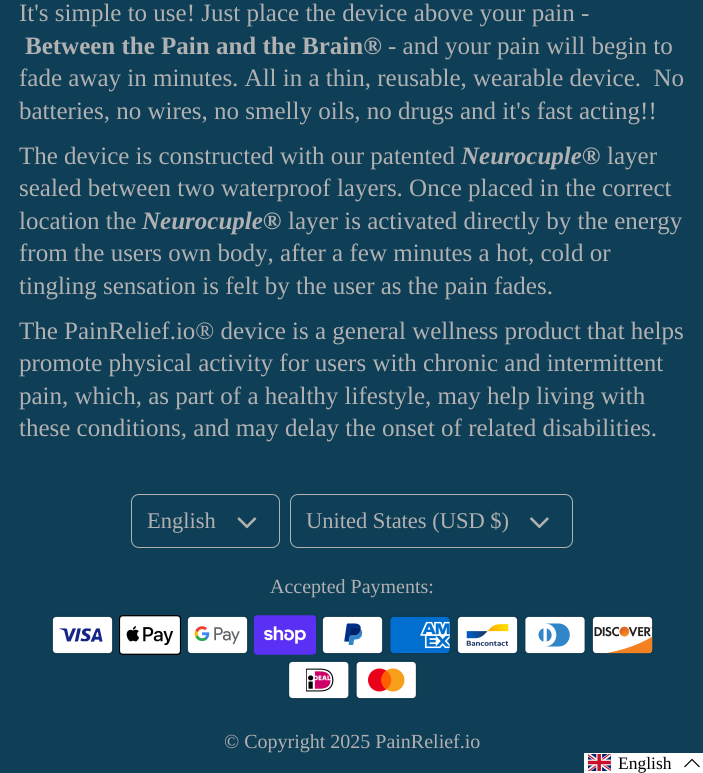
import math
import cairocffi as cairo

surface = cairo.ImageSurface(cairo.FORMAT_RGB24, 703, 773)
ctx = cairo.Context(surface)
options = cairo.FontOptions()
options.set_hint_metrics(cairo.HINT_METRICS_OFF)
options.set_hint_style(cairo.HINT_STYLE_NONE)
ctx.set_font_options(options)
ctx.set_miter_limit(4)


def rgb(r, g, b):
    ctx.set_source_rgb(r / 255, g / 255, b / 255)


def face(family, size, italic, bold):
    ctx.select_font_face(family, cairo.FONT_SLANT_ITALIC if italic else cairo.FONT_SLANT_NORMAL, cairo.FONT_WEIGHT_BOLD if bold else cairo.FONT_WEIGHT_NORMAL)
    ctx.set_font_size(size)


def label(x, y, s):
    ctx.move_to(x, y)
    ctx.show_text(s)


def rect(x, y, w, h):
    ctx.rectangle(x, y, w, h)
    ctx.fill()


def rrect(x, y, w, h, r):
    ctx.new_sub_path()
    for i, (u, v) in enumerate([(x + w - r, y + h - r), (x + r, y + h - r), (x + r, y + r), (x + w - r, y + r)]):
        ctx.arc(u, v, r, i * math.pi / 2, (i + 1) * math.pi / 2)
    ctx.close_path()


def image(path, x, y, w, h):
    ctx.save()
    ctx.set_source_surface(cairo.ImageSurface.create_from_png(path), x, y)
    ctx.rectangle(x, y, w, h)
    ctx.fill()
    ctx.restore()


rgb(15, 62, 87)
ctx.paint()
face('Liberation Serif', 25, 0, 0)
rgb(177, 177, 177)
label(19, 21, 'It\'s simple to use! Just place the device above your pain -')
face('Liberation Serif', 25, 0, 1)
label(25, 54, 'Between the Pain and the Brain®')
face('Liberation Serif', 25, 0, 0)
label(388, 54, '- and your pain will begin to')
label(19, 86, 'fade away in minutes. All in a thin, reusable, wearable device.  No')
label(19, 119, 'batteries, no wires, no smelly oils, no drugs and it\'s fast acting!!')
label(19, 164, 'The device is constructed with our patented')
face('Liberation Serif', 25, 1, 1)
label(461, 164, 'Neurocuple®')
face('Liberation Serif', 25, 0, 0)
label(607, 164, 'layer')
label(19, 196, 'sealed between two waterproof layers. Once placed in the correct')
label(19, 229, 'location the')
face('Liberation Serif', 25, 1, 1)
label(142, 229, 'Neurocuple®')
face('Liberation Serif', 25, 0, 0)
label(288, 229, 'layer is activated directly by the energy')
label(19, 261, 'from the users own body, after a few minutes a hot, cold or')
label(19, 294, 'tingling sensation is felt by the user as the pain fades.')
label(19, 339, 'The PainRelief.io® device is a general wellness product that helps')
label(19, 371, 'promote physical activity for users with chronic and intermittent')
label(19, 404, 'pain, which, as part of a healthy lifestyle, may help living with')
label(19, 436, 'these conditions, and may delay the onset of related disabilities.')
rrect(131.5, 494.5, 148, 53, 7.5)
ctx.set_line_width(1)
ctx.stroke()
face('Liberation Serif', 22.5, 0, 0)
label(147, 528, 'English')
image('image0.png', 237, 517, 20, 12)
rrect(290.5, 494.5, 282, 53, 7.5)
ctx.stroke()
label(306, 528, 'United States (USD $)')
image('image1.png', 530, 517, 19, 12)
face('Liberation Serif', 20, 0, 0)
label(270, 593, 'Accepted Payments:')
image('image2.png', 51, 615, 63, 40)
image('image3.png', 119, 615, 62, 40)
image('image4.png', 186, 615, 63, 40)
image('image5.png', 254, 615, 62, 40)
image('image6.png', 321, 615, 63, 40)
image('image7.png', 389, 615, 62, 40)
image('image8.png', 456, 615, 63, 40)
image('image9.png', 524, 615, 62, 40)
image('image10.png', 591, 615, 63, 40)
image('image11.png', 288, 660, 62, 40)
image('image12.png', 355, 660, 62, 40)
label(224, 748, '© Copyright 2025 PainRelief.io')
rgb(255, 255, 255)
rect(584, 753, 119, 20)
image('image13.png', 588, 754, 23, 17)
face('Liberation Serif', 17.5, 0, 0)
rgb(0, 0, 0)
label(618, 769, 'English')
ctx.new_path()
ctx.move_to(699.5, 767)
ctx.line_to(692, 759.5)
ctx.line_to(684.5, 767)
ctx.set_line_width(1.2)
ctx.stroke()
surface.write_to_png('render.png')
